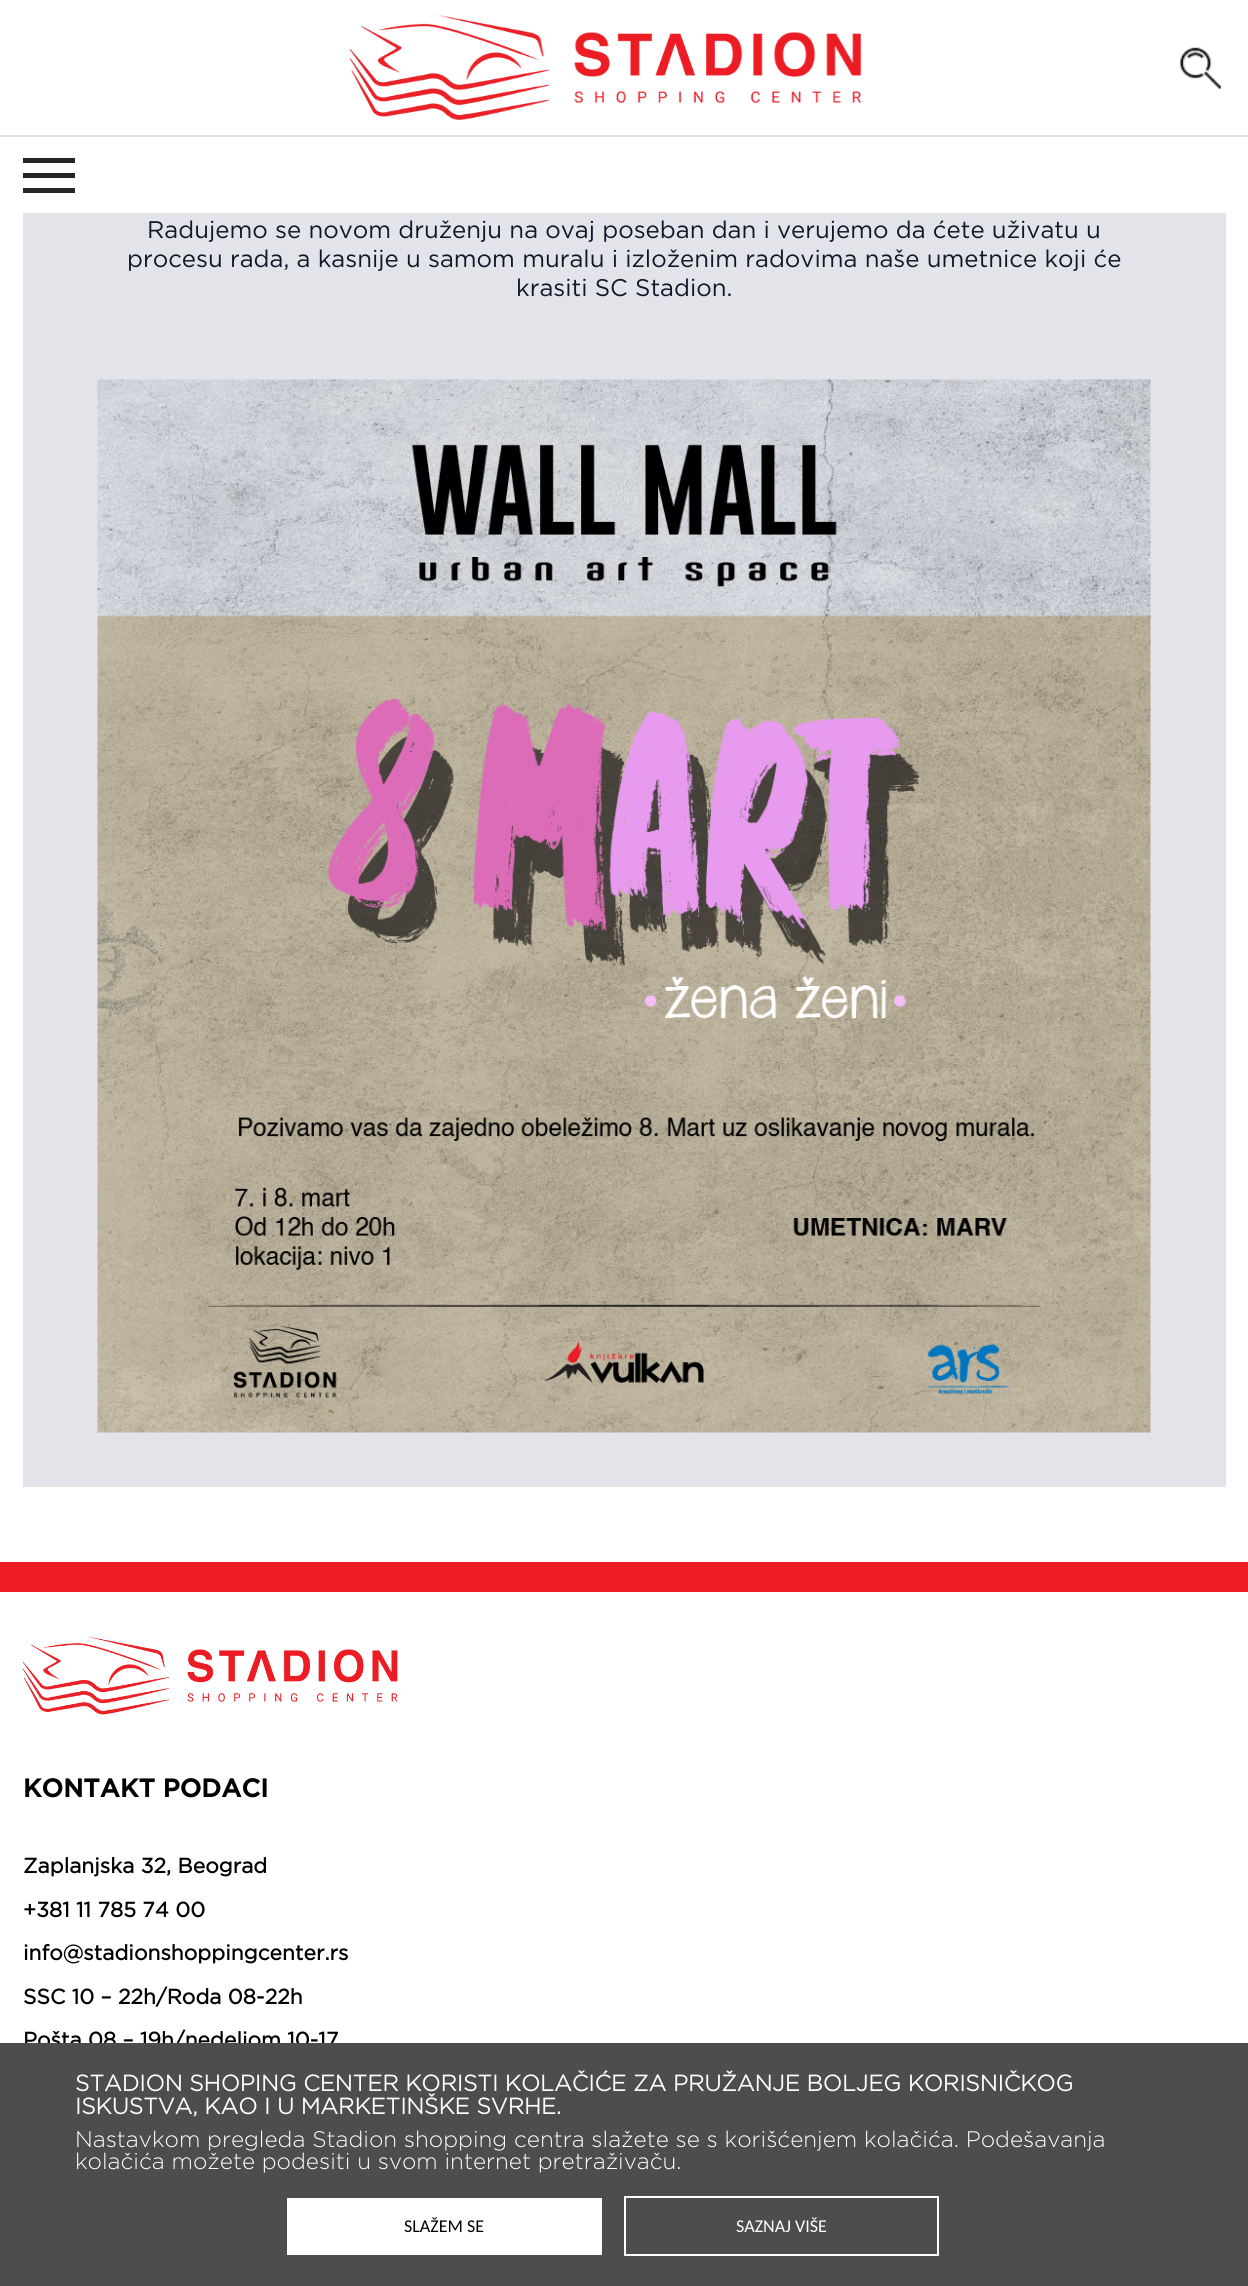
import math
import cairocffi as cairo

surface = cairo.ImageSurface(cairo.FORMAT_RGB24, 1248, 2286)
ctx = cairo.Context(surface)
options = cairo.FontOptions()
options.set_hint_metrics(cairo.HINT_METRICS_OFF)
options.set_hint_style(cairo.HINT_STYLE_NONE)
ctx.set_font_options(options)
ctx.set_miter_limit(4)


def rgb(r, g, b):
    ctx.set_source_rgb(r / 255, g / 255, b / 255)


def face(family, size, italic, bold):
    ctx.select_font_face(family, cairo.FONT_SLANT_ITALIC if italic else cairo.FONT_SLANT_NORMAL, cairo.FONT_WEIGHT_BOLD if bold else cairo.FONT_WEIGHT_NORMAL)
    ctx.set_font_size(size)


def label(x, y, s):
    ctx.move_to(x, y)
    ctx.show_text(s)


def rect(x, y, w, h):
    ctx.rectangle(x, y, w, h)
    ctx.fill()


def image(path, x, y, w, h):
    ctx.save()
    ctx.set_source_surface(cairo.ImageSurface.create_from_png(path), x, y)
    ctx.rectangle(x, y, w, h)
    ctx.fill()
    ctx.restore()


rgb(255, 255, 255)
ctx.paint()
image('image0.png', 350, 15, 511, 105)
image('image1.png', 1180, 47, 41, 42)
rgb(225, 224, 227)
rect(0, 135, 1248, 2)
rgb(38, 38, 38)
rect(23, 173, 52, 5)
rect(23, 158, 52, 5)
rect(23, 188, 52, 5)
rgb(227, 228, 233)
rect(23, 213, 1203, 1274)
face('Gotham', 24, 0, 0)
rgb(13, 25, 43)
label(147, 238, 'Radujemo se novom druženju na ovaj poseban dan i verujemo da ćete uživatu u')
label(127, 267, 'procesu rada, a kasnije u samom muralu i izloženim radovima naše umetnice koji će')
label(516, 296, 'krasiti SC Stadion.')
image('image2.png', 97, 379, 1054, 1054)
rgb(237, 28, 36)
rect(0, 1562, 1248, 30)
image('image3.png', 22, 1636, 376, 79)
face('Gotham', 25.5, 0, 1)
rgb(0, 0, 0)
label(23, 1797, 'KONTAKT PODACI')
face('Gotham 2', 21, 0, 1)
label(23, 1873, 'Zaplanjska 32, Beograd')
label(23, 1917, '+381 11 785 74 00')
label(23, 1960, 'info@stadionshoppingcenter.rs')
label(23, 2004, 'SSC 10 – 22h/Roda 08-22h')
label(23, 2047, 'Pošta 08 – 19h/nedeljom 10-17')
rgb(77, 77, 79)
rect(0, 2043, 1248, 243)
face('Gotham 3', 22.5, 0, 1)
rgb(255, 255, 255)
label(75, 2091, 'STADION SHOPING CENTER KORISTI KOLAČIĆE ZA PRUŽANJE BOLJEG KORISNIČKOG')
label(75, 2114, 'ISKUSTVA, KAO I U MARKETINŠKE SVRHE.')
face('Gotham Light', 22.5, 0, 0)
label(75, 2147, 'Nastavkom pregleda Stadion shopping centra slažete se s korišćenjem kolačića. Podešavanja')
label(75, 2169, 'kolačića možete podesiti u svom internet pretraživaču.')
rect(287, 2198, 315, 57)
face('Carlito', 18, 0, 0)
rgb(0, 0, 0)
label(404, 2232, 'SLAŽEM SE')
ctx.rectangle(625, 2197, 313, 58)
rgb(255, 255, 255)
ctx.stroke()
label(736, 2232, 'SAZNAJ VIŠE')
surface.write_to_png('render.png')
